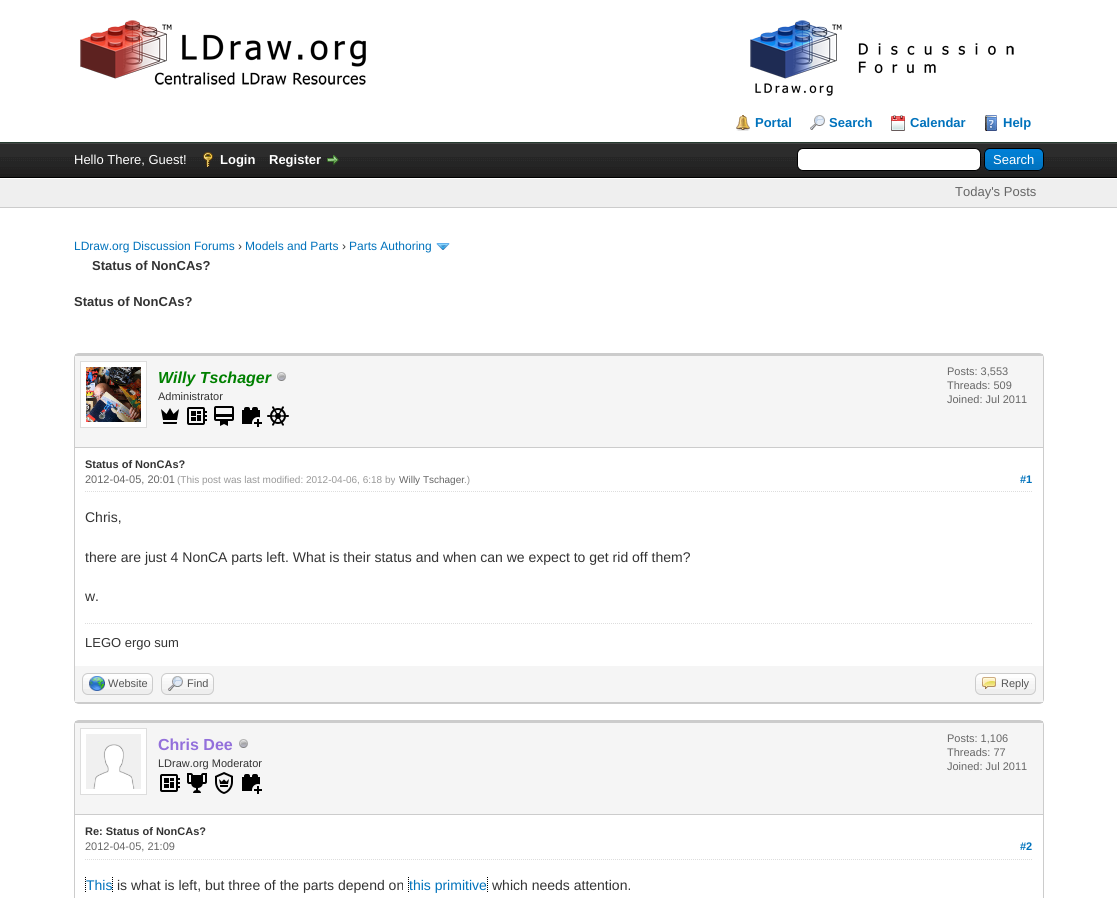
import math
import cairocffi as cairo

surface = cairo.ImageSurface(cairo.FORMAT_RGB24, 1117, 898)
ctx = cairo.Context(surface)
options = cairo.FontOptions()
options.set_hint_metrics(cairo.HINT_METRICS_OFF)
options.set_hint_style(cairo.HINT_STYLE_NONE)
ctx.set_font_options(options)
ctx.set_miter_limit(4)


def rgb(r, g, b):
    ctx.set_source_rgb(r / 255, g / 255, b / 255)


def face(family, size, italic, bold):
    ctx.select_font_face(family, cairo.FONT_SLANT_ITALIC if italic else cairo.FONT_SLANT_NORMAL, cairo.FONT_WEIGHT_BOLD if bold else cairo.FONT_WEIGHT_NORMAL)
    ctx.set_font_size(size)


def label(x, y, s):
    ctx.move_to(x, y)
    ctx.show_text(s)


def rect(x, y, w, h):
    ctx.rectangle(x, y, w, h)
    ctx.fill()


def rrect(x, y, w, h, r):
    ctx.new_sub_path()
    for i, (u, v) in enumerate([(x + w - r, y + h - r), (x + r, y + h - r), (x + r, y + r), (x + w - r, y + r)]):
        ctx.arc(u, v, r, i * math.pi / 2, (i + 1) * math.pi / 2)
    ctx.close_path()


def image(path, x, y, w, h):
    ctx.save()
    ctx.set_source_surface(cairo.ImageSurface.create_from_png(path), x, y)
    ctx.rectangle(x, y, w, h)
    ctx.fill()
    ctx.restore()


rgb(255, 255, 255)
ctx.paint()
rgb(38, 60, 48)
rect(0, 142, 1117, 1)
image('image0.png', 80, 20, 286, 65)
image('image1.png', 750, 20, 264, 76)
image('image2.png', 736, 115, 14, 16)
face('Liberation Sans', 13, 0, 1)
rgb(0, 114, 188)
label(755, 127, 'Portal')
image('image3.png', 810, 115, 15, 15)
label(829, 127, 'Search')
image('image4.png', 891, 115, 14, 16)
label(910, 127, 'Calendar')
image('image5.png', 985, 115, 12, 16)
label(1003, 127, 'Help')
image('image6.png', 0, 144, 1117, 33)
rgb(68, 68, 68)
rect(0, 143, 1117, 1)
rgb(0, 0, 0)
rect(0, 177, 1117, 1)
face('Liberation Sans', 13, 0, 0)
rgb(255, 255, 255)
label(74, 164, 'Hello There, Guest!')
image('image7.png', 203, 152, 10, 15)
face('Liberation Sans', 13, 0, 1)
label(220, 164, 'Login')
label(269, 164, 'Register')
image('image8.png', 327, 155, 12, 10)
rrect(797.5, 148.5, 183, 22, 5.5)
ctx.fill_preserve()
rgb(0, 0, 0)
ctx.set_line_width(1)
ctx.stroke()
image('image9.png', 984, 149, 60, 22)
rrect(984.5, 148.5, 59, 22, 5.5)
ctx.stroke()
face('Liberation Sans', 13, 0, 0)
rgb(255, 255, 255)
label(993, 164, 'Search')
rgb(239, 239, 239)
rect(0, 179, 1117, 28)
rgb(204, 204, 204)
rect(0, 207, 1117, 1)
rgb(102, 102, 102)
label(955, 196, 'Today\'s Posts')
face('Liberation Sans', 12, 0, 0)
rgb(0, 114, 188)
label(74, 250, 'LDraw.org Discussion Forums')
rgb(51, 51, 51)
label(238, 250, '›')
rgb(0, 114, 188)
label(245, 250, 'Models and Parts')
rgb(51, 51, 51)
label(342, 250, '›')
rgb(0, 114, 188)
label(349, 250, 'Parts Authoring')
image('image10.png', 436, 243, 14, 7)
face('Liberation Sans', 13, 0, 1)
rgb(51, 51, 51)
label(92, 270, 'Status of NonCAs?')
label(74, 306, 'Status of NonCAs?')
rrect(74.5, 353.5, 969, 350, 4.5)
rgb(204, 204, 204)
ctx.stroke()
rgb(245, 245, 245)
rect(75, 356, 968, 91)
rgb(204, 204, 204)
rect(75, 354, 968, 2)
rect(75, 447, 968, 1)
rgb(255, 255, 255)
ctx.rectangle(80.5, 361.5, 66, 66)
ctx.fill_preserve()
rgb(221, 221, 221)
ctx.stroke()
image('image11.png', 86, 367, 55, 55)
face('Liberation Sans', 16, 1, 1)
rgb(0, 128, 0)
label(158, 383, 'Willy Tschager')
image('image12.png', 277, 372, 9, 9)
face('Liberation Sans', 11, 0, 0)
rgb(51, 51, 51)
label(158, 400, 'Administrator')
image('image13.png', 161, 408, 18, 16)
image('image14.png', 187, 407, 20, 18)
image('image15.png', 214, 406, 20, 20)
image('image16.png', 242, 407, 20, 20)
image('image17.png', 267, 406, 22, 20)
rgb(102, 102, 102)
label(947, 375, 'Posts: 3,553')
label(947, 389, 'Threads: 509')
label(947, 403, 'Joined: Jul 2011')
ctx.new_path()
ctx.move_to(85, 491.5)
ctx.line_to(1033, 491.5)
rgb(221, 221, 221)
ctx.set_dash([1, 1])
ctx.stroke()
face('Liberation Sans', 11, 0, 1)
rgb(51, 51, 51)
label(85, 468, 'Status of NonCAs?')
face('Liberation Sans', 11, 0, 0)
rgb(102, 102, 102)
label(85, 483, '2012-04-05, 20:01')
face('Liberation Sans', 10, 0, 0)
rgb(153, 153, 153)
label(177, 483, '(This post was last modified: 2012-04-06, 6:18 by')
rgb(102, 102, 102)
label(399, 483, 'Willy Tschager')
rgb(153, 153, 153)
label(464, 483, '.)')
face('Liberation Sans', 11, 0, 1)
rgb(0, 114, 188)
label(1020, 483, '#1')
face('Liberation Sans', 14, 0, 0)
rgb(51, 51, 51)
label(85, 522, 'Chris,')
label(85, 562, 'there are just 4 NonCA parts left. What is their status and when can we expect to get rid off them?')
label(85, 601, 'w.')
ctx.new_path()
ctx.move_to(85, 623.5)
ctx.line_to(1033, 623.5)
rgb(221, 221, 221)
ctx.stroke()
face('Liberation Sans', 13, 0, 0)
rgb(51, 51, 51)
label(85, 647, 'LEGO ergo sum')
rgb(245, 245, 245)
rect(75, 666, 968, 36)
rgb(204, 204, 204)
rect(75, 702, 968, 1)
rgb(238, 238, 238)
rrect(82, 673, 71, 22, 6)
ctx.fill()
image('image18.png', 82, 674, 71, 15)
rrect(82.5, 673.5, 70, 21, 5.5)
rgb(204, 204, 204)
ctx.set_dash([])
ctx.stroke()
image('image19.png', 89, 676, 16, 15)
face('Liberation Sans', 11, 0, 0)
rgb(85, 85, 85)
label(108, 687, 'Website')
rgb(238, 238, 238)
rrect(161, 673, 53, 22, 6)
ctx.fill()
image('image20.png', 161, 674, 53, 15)
rrect(161.5, 673.5, 52, 21, 5.5)
rgb(204, 204, 204)
ctx.stroke()
image('image21.png', 168, 676, 15, 15)
rgb(85, 85, 85)
label(187, 687, 'Find')
rgb(238, 238, 238)
rrect(975, 673, 61, 22, 6)
ctx.fill()
image('image22.png', 975, 674, 61, 15)
rrect(975.5, 673.5, 60, 21, 5.5)
rgb(204, 204, 204)
ctx.stroke()
image('image23.png', 982, 677, 14, 12)
rgb(85, 85, 85)
label(1001, 687, 'Reply')
rrect(74.5, 720.5, 969, 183, 4.5)
rgb(204, 204, 204)
ctx.stroke()
rgb(245, 245, 245)
rect(75, 723, 968, 91)
rgb(204, 204, 204)
rect(75, 721, 968, 2)
rect(75, 814, 968, 1)
rgb(255, 255, 255)
ctx.rectangle(80.5, 728.5, 66, 66)
ctx.fill_preserve()
rgb(221, 221, 221)
ctx.stroke()
image('image24.png', 86, 734, 55, 55)
face('Liberation Sans', 16, 0, 1)
rgb(147, 112, 219)
label(158, 750, 'Chris Dee')
image('image12.png', 239, 739, 9, 9)
face('Liberation Sans', 11, 0, 0)
rgb(51, 51, 51)
label(158, 767, 'LDraw.org Moderator')
image('image14.png', 160, 774, 20, 18)
image('image25.png', 187, 773, 20, 20)
image('image26.png', 215, 772, 18, 22)
image('image16.png', 242, 774, 20, 20)
rgb(102, 102, 102)
label(947, 742, 'Posts: 1,106')
label(947, 756, 'Threads: 77')
label(947, 770, 'Joined: Jul 2011')
ctx.new_path()
ctx.move_to(85, 859.5)
ctx.line_to(1033, 859.5)
rgb(221, 221, 221)
ctx.set_dash([1, 1])
ctx.stroke()
face('Liberation Sans', 11, 0, 1)
rgb(51, 51, 51)
label(85, 835, 'Re: Status of NonCAs?')
face('Liberation Sans', 11, 0, 0)
rgb(102, 102, 102)
label(85, 850, '2012-04-05, 21:09')
face('Liberation Sans', 11, 0, 1)
rgb(0, 114, 188)
label(1020, 850, '#2')
ctx.new_path()
ctx.move_to(112.5, 877)
ctx.line_to(112.5, 893)
ctx.move_to(85.5, 877)
ctx.line_to(85.5, 893)
rgb(0, 0, 0)
ctx.stroke()
face('Liberation Sans', 14, 0, 0)
rgb(0, 114, 188)
label(86, 890, 'This')
rgb(51, 51, 51)
label(117, 890, 'is what is left, but three of the parts depend on')
rgb(0, 114, 188)
label(409, 890, 'this primitive')
ctx.new_path()
ctx.move_to(487.5, 877)
ctx.line_to(487.5, 893)
rgb(0, 0, 0)
ctx.stroke()
ctx.new_path()
ctx.move_to(408.5, 877)
ctx.line_to(408.5, 893)
ctx.stroke()
rgb(51, 51, 51)
label(492, 890, 'which needs attention.')
surface.write_to_png('render.png')
